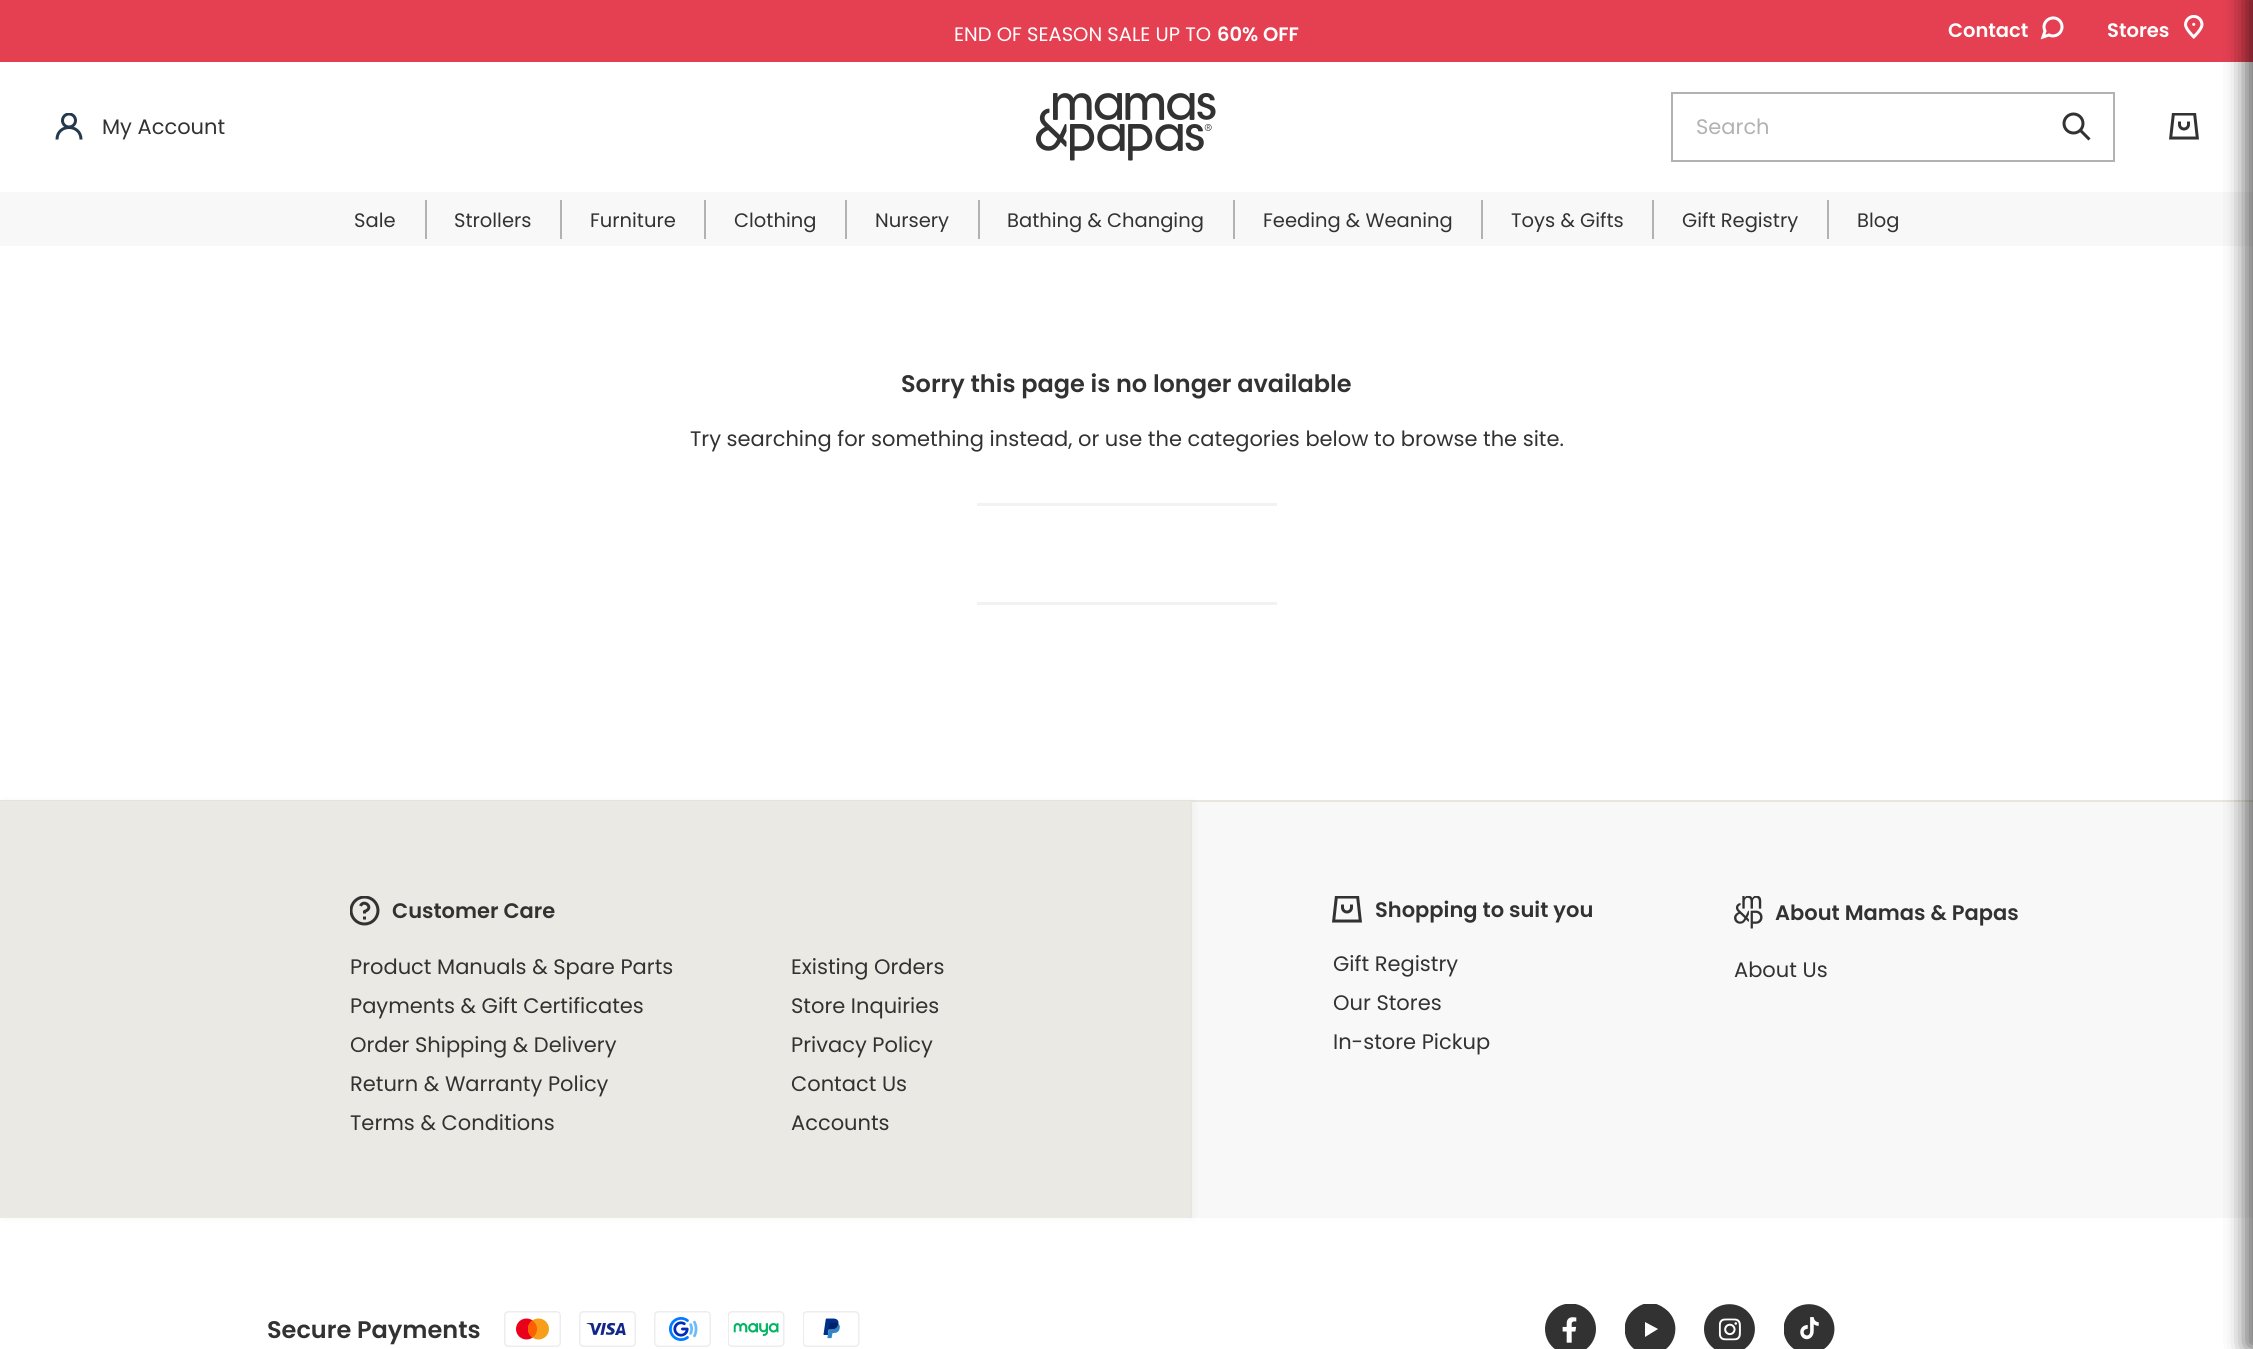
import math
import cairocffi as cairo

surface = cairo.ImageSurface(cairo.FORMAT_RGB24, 2253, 1349)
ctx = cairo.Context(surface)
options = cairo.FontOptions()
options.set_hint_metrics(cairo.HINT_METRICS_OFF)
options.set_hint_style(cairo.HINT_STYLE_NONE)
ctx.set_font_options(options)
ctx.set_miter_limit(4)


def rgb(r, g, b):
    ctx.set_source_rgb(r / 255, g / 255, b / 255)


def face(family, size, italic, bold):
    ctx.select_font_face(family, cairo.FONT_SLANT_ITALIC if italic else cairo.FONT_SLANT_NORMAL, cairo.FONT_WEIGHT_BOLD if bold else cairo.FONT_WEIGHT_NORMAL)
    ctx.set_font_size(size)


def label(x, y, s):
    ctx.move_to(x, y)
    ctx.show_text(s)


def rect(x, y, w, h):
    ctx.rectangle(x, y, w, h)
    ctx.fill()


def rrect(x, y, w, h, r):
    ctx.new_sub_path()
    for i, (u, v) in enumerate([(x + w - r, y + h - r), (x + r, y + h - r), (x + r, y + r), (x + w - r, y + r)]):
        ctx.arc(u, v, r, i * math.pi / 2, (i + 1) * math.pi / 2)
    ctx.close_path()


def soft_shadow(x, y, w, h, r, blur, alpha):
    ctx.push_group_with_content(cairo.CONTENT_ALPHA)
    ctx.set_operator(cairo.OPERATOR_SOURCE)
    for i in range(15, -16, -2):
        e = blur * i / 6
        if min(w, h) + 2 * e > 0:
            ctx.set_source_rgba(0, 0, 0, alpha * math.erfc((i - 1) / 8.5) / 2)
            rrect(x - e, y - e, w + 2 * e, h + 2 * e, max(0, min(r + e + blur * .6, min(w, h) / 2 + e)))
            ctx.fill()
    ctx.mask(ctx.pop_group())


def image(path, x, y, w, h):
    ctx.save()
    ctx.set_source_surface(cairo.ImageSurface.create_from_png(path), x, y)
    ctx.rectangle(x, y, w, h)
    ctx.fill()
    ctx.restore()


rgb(255, 255, 255)
ctx.paint()
rgb(229, 64, 82)
rect(0, 0, 2253, 62)
rgb(248, 248, 248)
rect(0, 192, 2253, 54)
rect(1192, 802, 1061, 416)
rgb(233, 230, 222)
rect(0, 800, 2253, 2)
rgb(0, 0, 0)
soft_shadow(2247, -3, 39, 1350, 0, 11, 0.2)
soft_shadow(2247, -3, 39, 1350, 0, 11, 0.2)
soft_shadow(2247, -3, 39, 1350, 0, 11, 0.2)
face('Poppins', 19.5, 0, 0)
rgb(255, 255, 255)
label(954, 41, 'END OF SEASON SALE UP TO')
face('Poppins SemiBold', 19.5, 0, 0)
label(1217, 41, '60% OFF')
label(1948, 37, 'Contact')
ctx.new_path()
ctx.move_to(2062, 27)
ctx.curve_to(2062, 33.5, 2055, 38, 2049, 35)
ctx.line_to(2043, 37)
ctx.line_to(2045, 31)
ctx.curve_to(2040.5, 22, 2052, 13.5, 2059.5, 20.5)
ctx.curve_to(2061, 22, 2062, 24.5, 2062, 26.5)
ctx.close_path()
ctx.set_line_width(3)
ctx.stroke()
label(2107, 37, 'Stores')
image('image0.png', 2184, 15, 20, 24)
ctx.new_path()
ctx.move_to(81, 139.5)
ctx.curve_to(81, 123.5, 57, 123.5, 57, 139.5)
rgb(36, 57, 77)
ctx.set_line_join(cairo.LINE_JOIN_ROUND)
ctx.stroke()
ctx.save()
ctx.rectangle(54, 113, 30, 27)
ctx.clip()
ctx.arc(69, 120.5, 6.5, 0, 2 * math.pi)
ctx.set_line_join(cairo.LINE_JOIN_MITER)
ctx.stroke()
ctx.restore()
face('Poppins', 21, 0, 0)
rgb(50, 50, 50)
label(102, 134, 'My Account')
image('image1.png', 1035, 93, 181, 68)
ctx.rectangle(1672, 93, 442, 68)
rgb(178, 178, 178)
ctx.set_line_width(2)
ctx.set_line_join(cairo.LINE_JOIN_MITER)
ctx.stroke()
label(1696, 134, 'Search')
ctx.new_path()
ctx.arc(2073.5, 123.5, 9.5, 0, 2 * math.pi)
rgb(50, 50, 50)
ctx.set_line_width(3)
ctx.stroke()
ctx.new_path()
ctx.move_to(2080, 130)
ctx.line_to(2089.5, 139.5)
ctx.stroke()
image('image2.png', 2169, 113, 30, 27)
rgb(178, 178, 178)
rect(425, 200, 2, 39)
face('Poppins', 19.5, 0, 0)
rgb(50, 50, 50)
label(354, 227, 'Sale')
rgb(178, 178, 178)
rect(560, 200, 2, 39)
rgb(50, 50, 50)
label(454, 227, 'Strollers')
rgb(178, 178, 178)
rect(704, 200, 2, 39)
rgb(50, 50, 50)
label(590, 227, 'Furniture')
rgb(178, 178, 178)
rect(845, 200, 2, 39)
rgb(50, 50, 50)
label(734, 227, 'Clothing')
rgb(178, 178, 178)
rect(978, 200, 2, 39)
rgb(50, 50, 50)
label(875, 227, 'Nursery')
rgb(178, 178, 178)
rect(1233, 200, 2, 39)
rgb(50, 50, 50)
label(1007, 227, 'Bathing & Changing')
rgb(178, 178, 178)
rect(1481, 200, 2, 39)
rgb(50, 50, 50)
label(1263, 227, 'Feeding & Weaning')
rgb(178, 178, 178)
rect(1652, 200, 2, 39)
rgb(50, 50, 50)
label(1511, 227, 'Toys & Gifts')
rgb(178, 178, 178)
rect(1827, 200, 2, 39)
rgb(50, 50, 50)
label(1682, 227, 'Gift Registry')
label(1857, 227, 'Blog')
rgb(0, 0, 0)
soft_shadow(2247, -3, 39, 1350, 0, 11, 0.2)
face('Poppins SemiBold', 24, 0, 0)
rgb(50, 50, 50)
label(901, 392, 'Sorry this page is no longer available')
face('Poppins', 21, 0, 0)
label(690, 446, 'Try searching for something instead, or use the categories below to browse the site.')
rgb(242, 242, 242)
rect(977, 503, 300, 3)
rect(977, 602, 300, 3)
rgb(0, 0, 0)
soft_shadow(3, 801, 1191, 417, 0, 4, 0.04)
rgb(235, 233, 228)
rect(0, 801, 1190, 417)
rgb(233, 230, 222)
rect(1190, 801, 2, 417)
ctx.save()
ctx.rectangle(350, 896, 30, 30)
ctx.clip()
ctx.arc(364.5, 910.5, 13.5, 0, 2 * math.pi)
rgb(50, 50, 50)
ctx.stroke()
ctx.restore()
ctx.new_path()
ctx.move_to(360.5, 906)
ctx.curve_to(363.5, 898.5, 375, 908, 364.5, 911.5)
ctx.line_to(364.5, 913.5)
ctx.move_to(364.5, 916.5)
ctx.line_to(364.5, 919.5)
rgb(50, 50, 50)
ctx.set_line_join(cairo.LINE_JOIN_ROUND)
ctx.stroke()
face('Poppins SemiBold', 21, 0, 0)
label(392, 918, 'Customer Care')
face('Poppins', 21, 0, 0)
label(350, 974, 'Product Manuals & Spare Parts')
label(791, 974, 'Existing Orders')
label(350, 1013, 'Payments & Gift Certificates')
label(791, 1013, 'Store Inquiries')
label(350, 1052, 'Order Shipping & Delivery')
label(791, 1052, 'Privacy Policy')
label(350, 1091, 'Return & Warranty Policy')
label(791, 1091, 'Contact Us')
label(350, 1130, 'Terms & Conditions')
label(791, 1130, 'Accounts')
image('image3.png', 1332, 896, 30, 27)
face('Poppins SemiBold', 21, 0, 0)
label(1375, 917, 'Shopping to suit you')
face('Poppins', 21, 0, 0)
label(1333, 971, 'Gift Registry')
label(1333, 1010, 'Our Stores')
label(1333, 1049, 'In-store Pickup')
image('image4.png', 1734, 896, 29, 33)
face('Poppins SemiBold', 21, 0, 0)
label(1775, 920, 'About Mamas & Papas')
face('Poppins', 21, 0, 0)
label(1734, 977, 'About Us')
face('Poppins SemiBold', 24, 0, 0)
label(267, 1338, 'Secure Payments')
image('image5.png', 504, 1311, 57, 36)
image('image6.png', 579, 1311, 57, 36)
image('image7.png', 654, 1311, 57, 36)
image('image8.png', 728, 1311, 57, 36)
image('image9.png', 803, 1311, 57, 36)
image('image10.png', 1545, 1304, 51, 45)
ctx.save()
ctx.rectangle(1625, 1304, 51, 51)
ctx.clip()
ctx.new_path()
ctx.move_to(1650, 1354)
ctx.curve_to(1625, 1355, 1615, 1322, 1636, 1308)
ctx.curve_to(1640, 1305, 1645, 1303, 1650, 1303)
ctx.curve_to(1655, 1303, 1660, 1305, 1664, 1308)
ctx.curve_to(1685, 1322, 1675, 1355, 1650, 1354)
ctx.close_path()
ctx.move_to(1645, 1322)
ctx.line_to(1645, 1337)
ctx.line_to(1658, 1329)
ctx.close_path()
ctx.fill()
ctx.restore()
image('image11.png', 1704, 1304, 51, 45)
image('image12.png', 1784, 1304, 51, 45)
surface.write_to_png('render.png')
